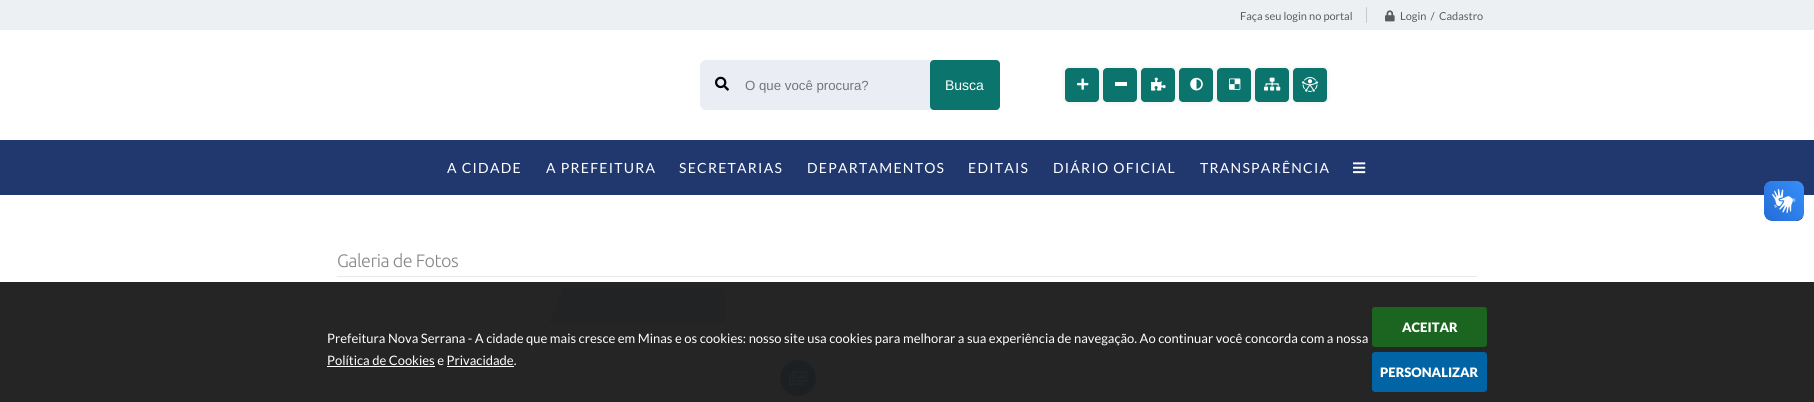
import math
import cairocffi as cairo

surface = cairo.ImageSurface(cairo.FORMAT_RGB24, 1814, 402)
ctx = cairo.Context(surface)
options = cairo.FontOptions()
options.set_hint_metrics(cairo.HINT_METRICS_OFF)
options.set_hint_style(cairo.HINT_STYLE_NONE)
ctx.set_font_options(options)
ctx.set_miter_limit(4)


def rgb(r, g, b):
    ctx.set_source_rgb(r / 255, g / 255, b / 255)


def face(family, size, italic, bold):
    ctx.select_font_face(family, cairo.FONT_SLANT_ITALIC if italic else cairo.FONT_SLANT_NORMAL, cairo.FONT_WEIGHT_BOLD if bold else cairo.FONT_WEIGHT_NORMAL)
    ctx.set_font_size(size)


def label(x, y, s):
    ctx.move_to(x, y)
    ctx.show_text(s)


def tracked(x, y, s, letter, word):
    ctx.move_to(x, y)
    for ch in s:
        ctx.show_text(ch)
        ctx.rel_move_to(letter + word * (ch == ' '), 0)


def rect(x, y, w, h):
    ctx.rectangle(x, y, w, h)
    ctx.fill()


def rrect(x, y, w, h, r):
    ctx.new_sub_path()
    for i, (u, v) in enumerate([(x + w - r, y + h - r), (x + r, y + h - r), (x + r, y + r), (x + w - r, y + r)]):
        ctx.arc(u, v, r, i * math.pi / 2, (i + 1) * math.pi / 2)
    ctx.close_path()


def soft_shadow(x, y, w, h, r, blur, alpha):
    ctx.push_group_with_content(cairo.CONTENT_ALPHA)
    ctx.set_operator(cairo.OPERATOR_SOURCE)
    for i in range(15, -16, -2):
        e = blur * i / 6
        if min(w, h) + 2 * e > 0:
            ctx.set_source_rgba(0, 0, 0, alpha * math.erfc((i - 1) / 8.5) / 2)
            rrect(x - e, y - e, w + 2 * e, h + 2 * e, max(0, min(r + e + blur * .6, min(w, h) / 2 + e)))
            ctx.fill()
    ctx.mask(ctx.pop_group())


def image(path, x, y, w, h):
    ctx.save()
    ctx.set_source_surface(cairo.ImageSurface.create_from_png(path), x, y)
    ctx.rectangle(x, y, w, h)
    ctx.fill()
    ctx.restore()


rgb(255, 255, 255)
ctx.paint()
rgb(37, 37, 37)
rect(0, 282, 1814, 120)
rgb(237, 240, 243)
rect(0, 0, 1814, 30)
face('Lato', 11, 0, 0)
rgb(91, 91, 91)
label(1240, 20, 'Faça seu login no portal')
rgb(196, 202, 207)
rrect(1366, 7, 1, 16, 0.5)
ctx.fill()
image('image0.png', 1385, 10, 10, 12)
rgb(91, 91, 91)
label(1400, 20, 'Login  /  Cadastro')
rgb(234, 237, 244)
rrect(700, 60, 300, 50, 6)
ctx.fill()
image('image1.png', 715, 76, 14, 15)
face('Liberation Sans', 13.25, 0, 0)
rgb(117, 117, 117)
label(745, 90, 'O que você procura?')
rgb(11, 116, 109)
rrect(930, 60, 70, 50, 4)
ctx.fill()
face('Liberation Sans', 14, 0, 0)
rgb(255, 255, 255)
label(945, 90, 'Busca')
rgb(0, 0, 0)
soft_shadow(1065, 68, 34, 34, 4, 2.5, 0.1)
rgb(11, 116, 109)
rrect(1065, 68, 34, 34, 4)
ctx.fill()
image('image2.png', 1077, 78, 12, 12)
rgb(0, 0, 0)
soft_shadow(1103, 68, 34, 34, 4, 2.5, 0.1)
rgb(11, 116, 109)
rrect(1103, 68, 34, 34, 4)
ctx.fill()
rgb(255, 255, 255)
rect(1115, 82, 12, 4)
rgb(0, 0, 0)
soft_shadow(1141, 68, 34, 34, 4, 2.5, 0.1)
rgb(11, 116, 109)
rrect(1141, 68, 34, 34, 4)
ctx.fill()
image('image3.png', 1151, 77, 15, 14)
rgb(0, 0, 0)
soft_shadow(1179, 68, 34, 34, 4, 2.5, 0.1)
rgb(11, 116, 109)
rrect(1179, 68, 34, 34, 4)
ctx.fill()
image('image4.png', 1190, 77, 13, 14)
rgb(0, 0, 0)
soft_shadow(1217, 68, 34, 34, 4, 2.5, 0.1)
rgb(11, 116, 109)
rrect(1217, 68, 34, 34, 4)
ctx.fill()
image('image5.png', 1229, 78, 12, 12)
rgb(0, 0, 0)
soft_shadow(1255, 68, 34, 34, 4, 2.5, 0.1)
rgb(11, 116, 109)
rrect(1255, 68, 34, 34, 4)
ctx.fill()
image('image6.png', 1264, 77, 17, 14)
rgb(0, 0, 0)
soft_shadow(1293, 68, 34, 34, 4, 2.5, 0.1)
rgb(11, 116, 109)
rrect(1293, 68, 34, 34, 4)
ctx.fill()
image('image7.png', 1302, 77, 16, 15)
rgb(33, 56, 110)
rect(0, 140, 1814, 55)
face('Lato', 14, 0, 0)
rgb(255, 255, 255)
tracked(447, 173, 'A CIDADE', 1.25, 0)
tracked(546, 173, 'A PREFEITURA', 1.25, 0)
tracked(679, 173, 'SECRETARIAS', 1.25, 0)
tracked(807, 173, 'DEPARTAMENTOS', 1.25, 0)
tracked(968, 173, 'EDITAIS', 1.25, 0)
tracked(1053, 173, 'DIÁRIO OFICIAL', 1.25, 0)
tracked(1200, 173, 'TRANSPARÊNCIA', 1.25, 0)
image('image8.png', 1353, 162, 13, 12)
image('image9.png', 1764, 181, 40, 40)
image('image10.png', 1764, 181, 40, 40)
face('Lato', 13, 0, 0)
label(327, 343, 'Prefeitura Nova Serrana - A cidade que mais cresce em Minas e os cookies: nosso site usa cookies para melhorar a sua experiência de navegação. Ao continuar você concorda com a nossa')
label(327, 365, 'Política de Cookies e Privacidade.')
rect(327, 366, 108, 1)
rect(447, 366, 67, 1)
rgb(27, 101, 32)
rrect(1372, 307, 115, 40, 3)
ctx.fill()
face('Lato Black', 13, 0, 0)
rgb(255, 255, 255)
label(1402, 332, 'ACEITAR')
rgb(1, 100, 164)
rrect(1372, 352, 115, 40, 3)
ctx.fill()
rgb(255, 255, 255)
label(1380, 377, 'PERSONALIZAR')
face('Ubuntu Light', 18, 0, 0)
rgb(134, 134, 134)
tracked(337, 267, 'Galeria de Fotos', -0.5, 0)
rgb(233, 233, 233)
rect(337, 276, 1140, 1)
rgb(34, 35, 36)
ctx.new_path()
ctx.move_to(563, 288)
ctx.line_to(720, 288)
ctx.curve_to(723, 288, 725, 290, 725, 293)
ctx.line_to(725, 318)
ctx.curve_to(725, 321, 723, 323, 720, 323)
ctx.line_to(563, 323)
ctx.close_path()
ctx.fill()
ctx.new_path()
ctx.move_to(563, 323)
ctx.line_to(549, 323)
ctx.line_to(563, 288)
ctx.close_path()
ctx.fill()
rgb(29, 32, 35)
ctx.arc(798, 378, 18, 0, 2 * math.pi)
ctx.fill()
image('image11.png', 789, 371, 18, 14)
surface.write_to_png('render.png')
